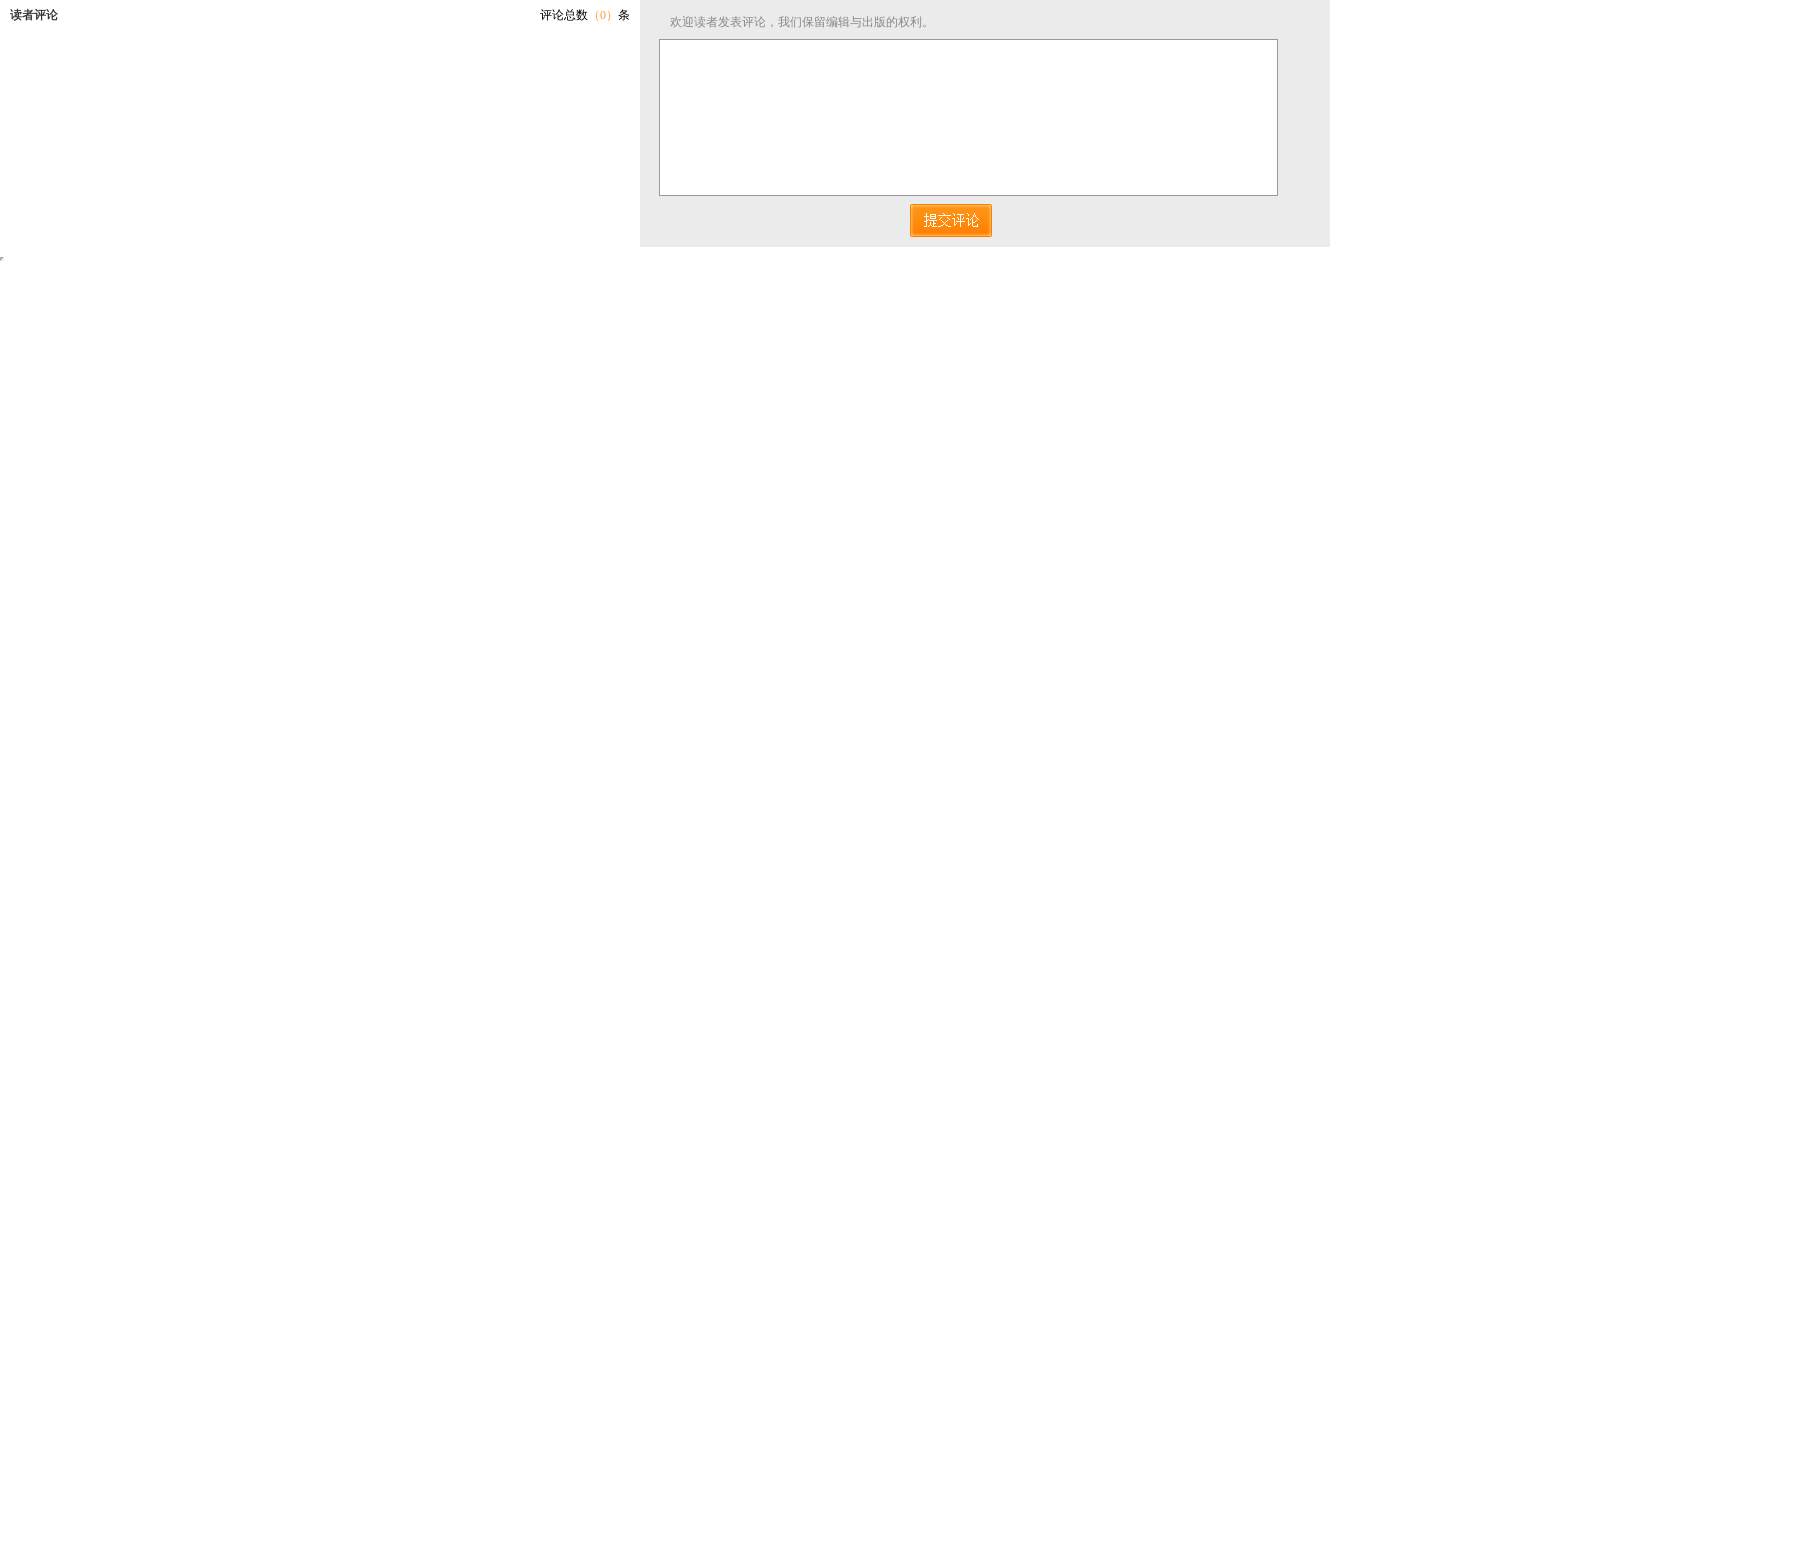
import math
import cairocffi as cairo

surface = cairo.ImageSurface(cairo.FORMAT_RGB24, 1796, 1560)
ctx = cairo.Context(surface)
options = cairo.FontOptions()
options.set_hint_metrics(cairo.HINT_METRICS_OFF)
options.set_hint_style(cairo.HINT_STYLE_NONE)
ctx.set_font_options(options)
ctx.set_miter_limit(4)


def rgb(r, g, b):
    ctx.set_source_rgb(r / 255, g / 255, b / 255)


def face(family, size, italic, bold):
    ctx.select_font_face(family, cairo.FONT_SLANT_ITALIC if italic else cairo.FONT_SLANT_NORMAL, cairo.FONT_WEIGHT_BOLD if bold else cairo.FONT_WEIGHT_NORMAL)
    ctx.set_font_size(size)


def label(x, y, s):
    ctx.move_to(x, y)
    ctx.show_text(s)


def rect(x, y, w, h):
    ctx.rectangle(x, y, w, h)
    ctx.fill()


def image(path, x, y, w, h):
    ctx.save()
    ctx.set_source_surface(cairo.ImageSurface.create_from_png(path), x, y)
    ctx.rectangle(x, y, w, h)
    ctx.fill()
    ctx.restore()


rgb(255, 255, 255)
ctx.paint()
face('WenQuanYi Zen Hei', 12, 0, 1)
rgb(51, 51, 51)
label(10, 19, '读者评论')
face('WenQuanYi Zen Hei Medium', 12, 0, 0)
rgb(0, 0, 0)
label(540, 19, '评论总数')
rgb(255, 151, 52)
label(588, 19, '（')
face('Liberation Serif', 12, 0, 0)
label(600, 19, '0')
face('WenQuanYi Zen Hei Medium', 12, 0, 0)
label(606, 19, '）')
rgb(0, 0, 0)
label(618, 19, '条')
rgb(235, 235, 235)
rect(640, 0, 690, 247)
rgb(136, 136, 136)
label(670, 26, '欢迎读者发表评论，我们保留编辑与出版的权利。')
rgb(255, 255, 255)
ctx.rectangle(659.5, 39.5, 618, 156)
ctx.fill_preserve()
rgb(153, 153, 153)
ctx.set_line_width(1)
ctx.stroke()
image('image0.png', 910, 204, 82, 33)
rgb(159, 159, 159)
ctx.new_path()
ctx.move_to(0, 257)
ctx.line_to(4, 257)
ctx.line_to(2, 259)
ctx.close_path()
ctx.fill()
rgb(238, 238, 238)
ctx.new_path()
ctx.move_to(4, 257)
ctx.line_to(4, 261)
ctx.line_to(2, 259)
ctx.close_path()
ctx.fill()
ctx.new_path()
ctx.move_to(4, 261)
ctx.line_to(0, 261)
ctx.line_to(2, 259)
ctx.close_path()
ctx.fill()
rgb(159, 159, 159)
ctx.new_path()
ctx.move_to(0, 261)
ctx.line_to(0, 257)
ctx.line_to(2, 259)
ctx.close_path()
ctx.fill()
surface.write_to_png('render.png')
